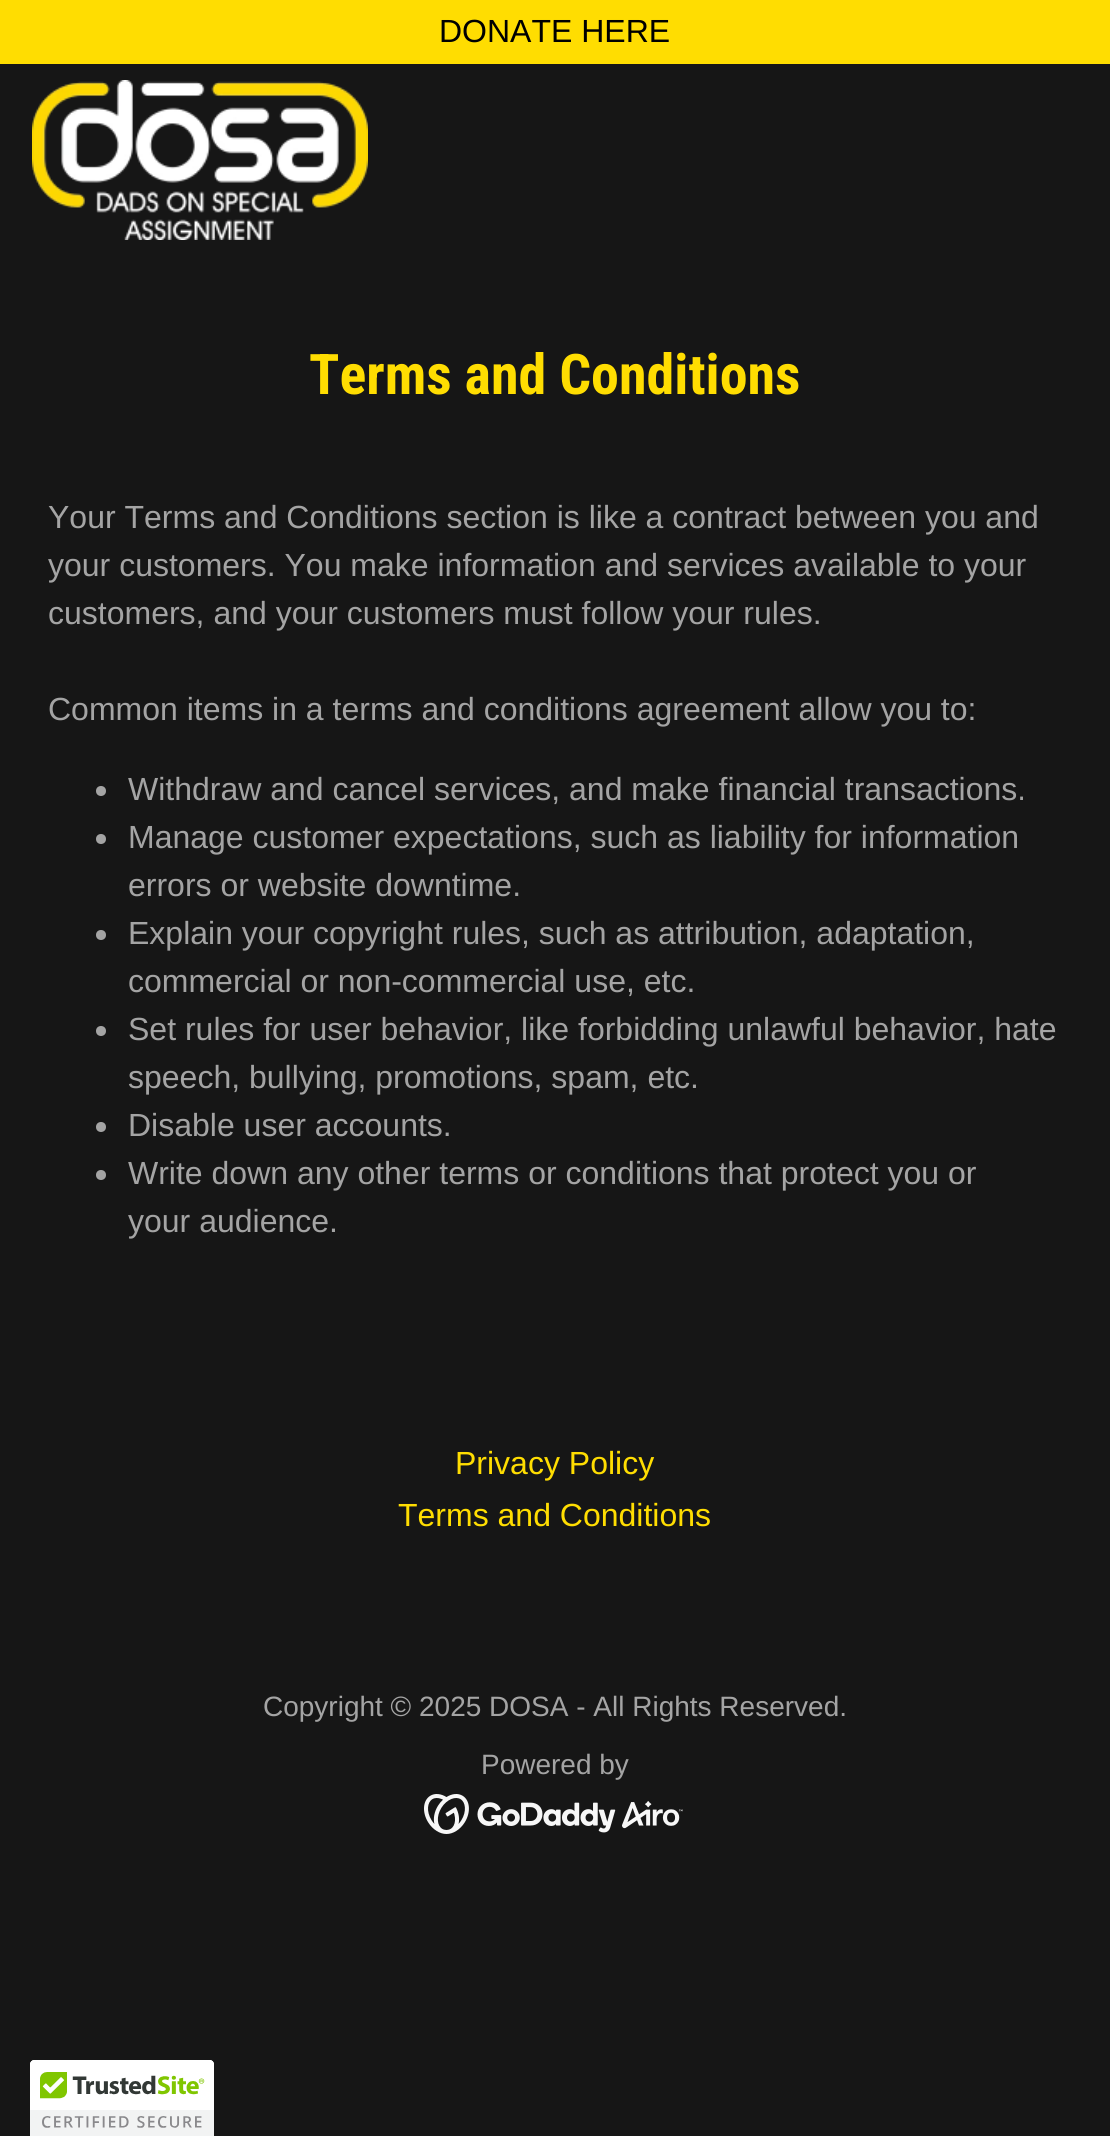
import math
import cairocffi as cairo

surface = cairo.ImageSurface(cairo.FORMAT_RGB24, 1110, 2136)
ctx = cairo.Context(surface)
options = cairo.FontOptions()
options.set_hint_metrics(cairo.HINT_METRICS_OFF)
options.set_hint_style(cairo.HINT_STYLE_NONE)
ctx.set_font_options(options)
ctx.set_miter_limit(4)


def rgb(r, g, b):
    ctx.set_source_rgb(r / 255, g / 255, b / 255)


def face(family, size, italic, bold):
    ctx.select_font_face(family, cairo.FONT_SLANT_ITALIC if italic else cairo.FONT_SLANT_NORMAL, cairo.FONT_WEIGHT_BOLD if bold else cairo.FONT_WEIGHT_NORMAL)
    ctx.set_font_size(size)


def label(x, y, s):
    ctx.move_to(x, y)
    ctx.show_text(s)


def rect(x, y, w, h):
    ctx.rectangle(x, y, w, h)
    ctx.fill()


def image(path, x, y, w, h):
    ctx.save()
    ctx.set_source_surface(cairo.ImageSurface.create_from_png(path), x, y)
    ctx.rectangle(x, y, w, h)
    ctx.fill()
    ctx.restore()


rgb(22, 22, 22)
ctx.paint()
rgb(255, 221, 1)
rect(0, 0, 1110, 64)
face('Liberation Sans', 32, 0, 0)
rgb(0, 0, 0)
label(439, 42, 'DONATE HERE')
image('image0.png', 32, 80, 336, 160)
face('Roboto Condensed', 56, 0, 1)
rgb(255, 221, 1)
label(309, 394, 'Terms and Conditions')
face('Liberation Sans', 32, 0, 0)
rgb(164, 164, 164)
label(48, 528, 'Your Terms and Conditions section is like a contract between you and')
label(48, 576, 'your customers. You make information and services available to your')
label(48, 624, 'customers, and your customers must follow your rules.')
label(48, 720, 'Common items in a terms and conditions agreement allow you to:')
ctx.new_path()
ctx.arc(101, 791, 5, 0, 2 * math.pi)
ctx.fill()
label(128, 800, 'Withdraw and cancel services, and make financial transactions.')
ctx.new_path()
ctx.arc(101, 839, 5, 0, 2 * math.pi)
ctx.fill()
label(128, 848, 'Manage customer expectations, such as liability for information')
label(128, 896, 'errors or website downtime.')
ctx.new_path()
ctx.arc(101, 935, 5, 0, 2 * math.pi)
ctx.fill()
label(128, 944, 'Explain your copyright rules, such as attribution, adaptation,')
label(128, 992, 'commercial or non-commercial use, etc.')
ctx.new_path()
ctx.arc(101, 1031, 5, 0, 2 * math.pi)
ctx.fill()
label(128, 1040, 'Set rules for user behavior, like forbidding unlawful behavior, hate')
label(128, 1088, 'speech, bullying, promotions, spam, etc.')
ctx.new_path()
ctx.arc(101, 1127, 5, 0, 2 * math.pi)
ctx.fill()
label(128, 1136, 'Disable user accounts.')
ctx.new_path()
ctx.arc(101, 1175, 5, 0, 2 * math.pi)
ctx.fill()
label(128, 1184, 'Write down any other terms or conditions that protect you or')
label(128, 1232, 'your audience.')
rgb(255, 221, 1)
label(455, 1474, 'Privacy Policy')
label(398, 1526, 'Terms and Conditions')
face('Liberation Sans', 28, 0, 0)
rgb(164, 164, 164)
label(263, 1716, 'Copyright © 2025 DOSA - All Rights Reserved.')
label(481, 1774, 'Powered by')
image('image1.png', 424, 1794, 259, 40)
rgb(255, 255, 255)
ctx.new_path()
ctx.move_to(34, 2060)
ctx.line_to(210, 2060)
ctx.curve_to(212, 2060, 214, 2062, 214, 2064)
ctx.line_to(214, 2136)
ctx.line_to(30, 2136)
ctx.line_to(30, 2064)
ctx.curve_to(30, 2062, 32, 2060, 34, 2060)
ctx.close_path()
ctx.fill()
image('image2.png', 30, 2060, 184, 76)
surface.write_to_png('render.png')
